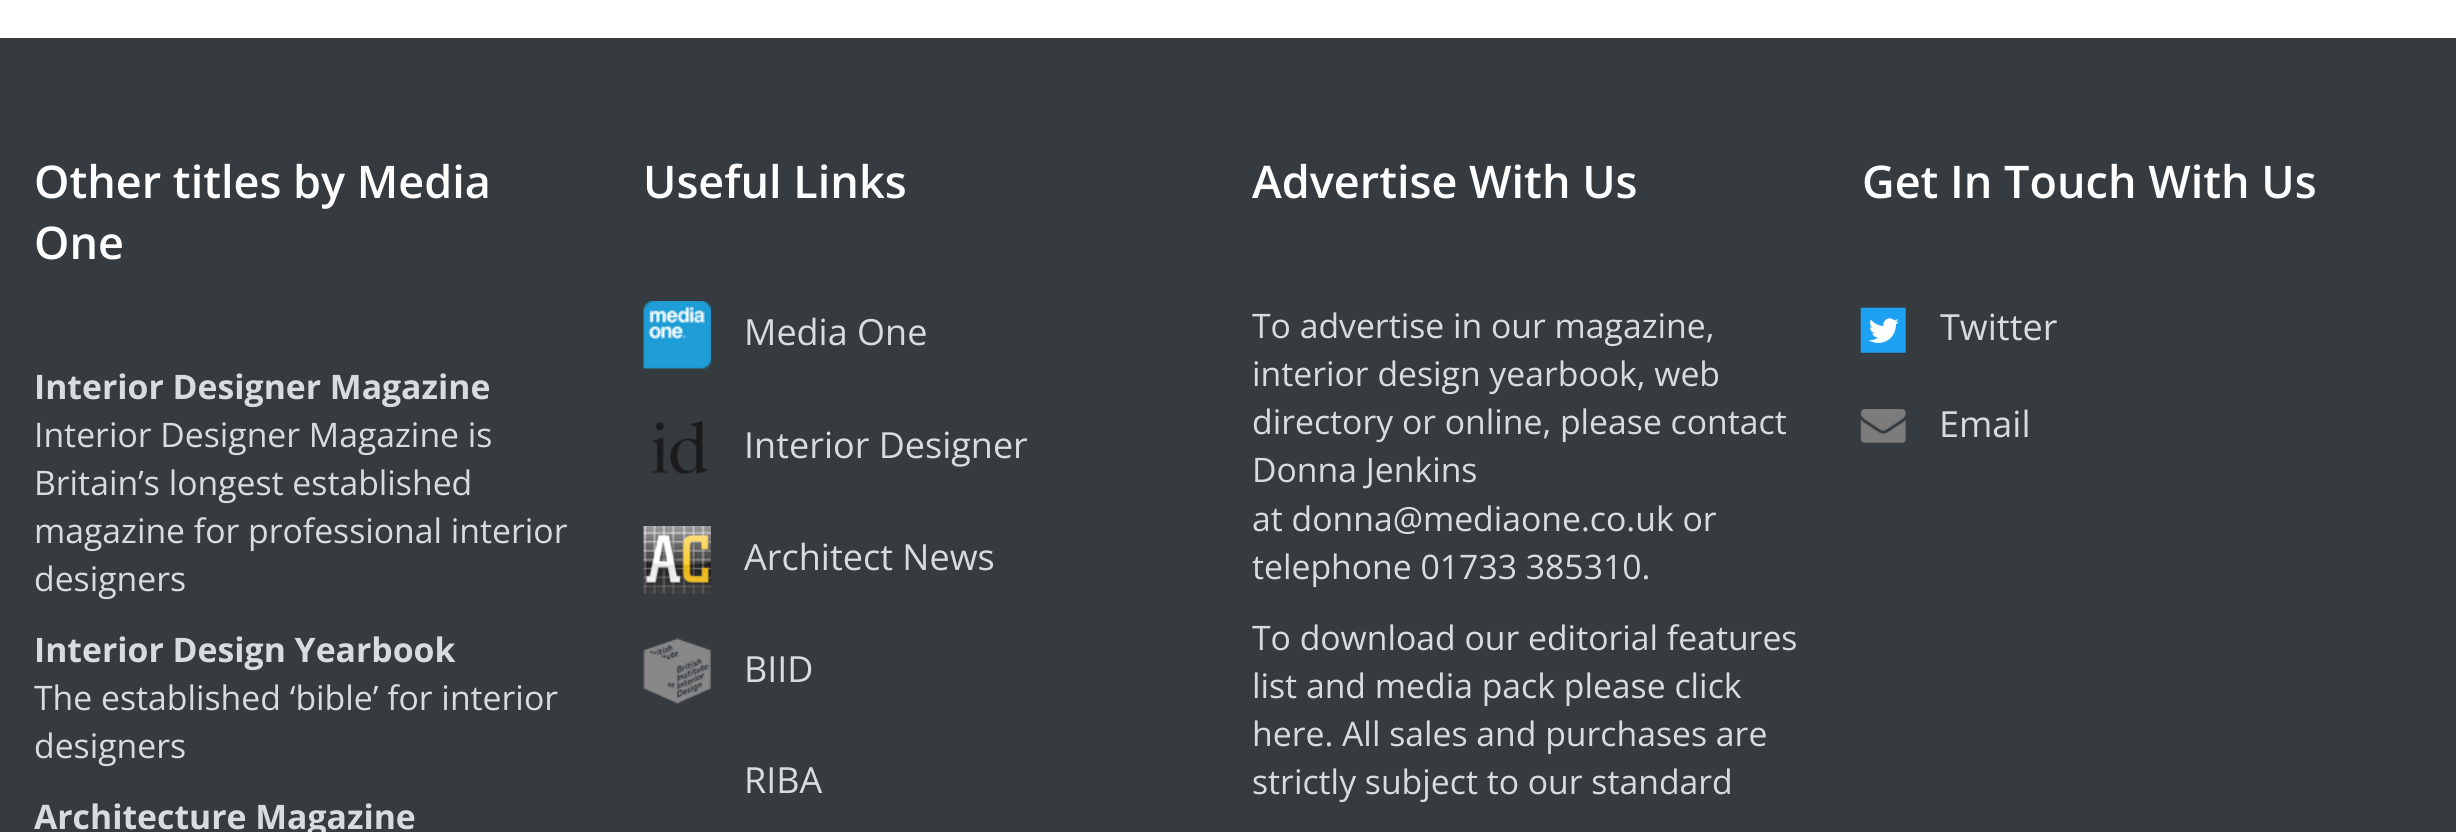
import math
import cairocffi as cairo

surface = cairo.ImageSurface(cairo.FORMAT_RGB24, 2456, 832)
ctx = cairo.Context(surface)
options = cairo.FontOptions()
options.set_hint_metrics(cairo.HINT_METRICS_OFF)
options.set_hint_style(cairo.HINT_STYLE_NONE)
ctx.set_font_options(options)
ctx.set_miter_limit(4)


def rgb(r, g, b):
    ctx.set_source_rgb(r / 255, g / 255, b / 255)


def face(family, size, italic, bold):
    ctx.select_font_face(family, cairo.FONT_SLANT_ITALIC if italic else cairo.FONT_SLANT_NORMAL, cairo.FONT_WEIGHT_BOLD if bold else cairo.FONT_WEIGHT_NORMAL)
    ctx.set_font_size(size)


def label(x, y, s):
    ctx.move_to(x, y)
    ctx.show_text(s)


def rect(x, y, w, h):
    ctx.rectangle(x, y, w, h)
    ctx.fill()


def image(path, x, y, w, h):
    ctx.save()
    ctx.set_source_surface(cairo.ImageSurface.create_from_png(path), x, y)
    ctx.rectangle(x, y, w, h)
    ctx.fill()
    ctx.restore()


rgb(255, 255, 255)
ctx.paint()
rgb(54, 59, 64)
rect(0, 38, 2456, 794)
face('Open Sans SemiBold', 45, 0, 0)
rgb(255, 255, 255)
label(34, 198, 'Other titles by Media')
label(34, 259, 'One')
face('Open Sans', 33.75, 0, 1)
rgb(215, 220, 224)
label(34, 399, 'Interior Designer Magazine')
face('Open Sans', 33.75, 0, 0)
label(34, 447, 'Interior Designer Magazine is')
label(34, 495, 'Britain’s longest established')
label(34, 543, 'magazine for professional interior')
label(34, 591, 'designers')
face('Open Sans', 33.75, 0, 1)
label(34, 662, 'Interior Design Yearbook')
face('Open Sans', 33.75, 0, 0)
label(34, 710, 'The established ‘bible’ for interior')
label(34, 758, 'designers')
face('Open Sans', 33.75, 0, 1)
label(34, 829, 'Architecture Magazine')
face('Open Sans SemiBold', 45, 0, 0)
rgb(255, 255, 255)
label(643, 198, 'Useful Links')
image('image0.png', 643, 301, 68, 68)
face('Open Sans', 36, 0, 0)
rgb(215, 220, 224)
label(744, 345, 'Media One')
image('image1.png', 652, 421, 56, 53)
label(744, 458, 'Interior Designer')
image('image2.png', 643, 526, 68, 68)
label(744, 570, 'Architect News')
image('image3.png', 643, 638, 68, 66)
label(744, 682, 'BIID')
label(744, 793, 'RIBA')
face('Open Sans SemiBold', 45, 0, 0)
rgb(255, 255, 255)
label(1252, 198, 'Advertise With Us')
face('Open Sans', 33.75, 0, 0)
rgb(215, 220, 224)
label(1252, 338, 'To advertise in our magazine,')
label(1252, 386, 'interior design yearbook, web')
label(1252, 434, 'directory or online, please contact')
label(1252, 482, 'Donna Jenkins')
label(1252, 531, 'at donna@mediaone.co.uk or')
label(1252, 579, 'telephone 01733 385310.')
label(1252, 650, 'To download our editorial features')
label(1252, 698, 'list and media pack please click')
label(1252, 746, 'here. All sales and purchases are')
label(1252, 794, 'strictly subject to our standard')
face('Open Sans SemiBold', 45, 0, 0)
rgb(255, 255, 255)
label(1862, 198, 'Get In Touch With Us')
image('image4.png', 1860, 307, 46, 46)
face('Open Sans', 36, 0, 0)
rgb(215, 220, 224)
label(1940, 340, 'Twitter')
image('image5.png', 1860, 409, 46, 34)
label(1939, 437, 'Email')
surface.write_to_png('render.png')
